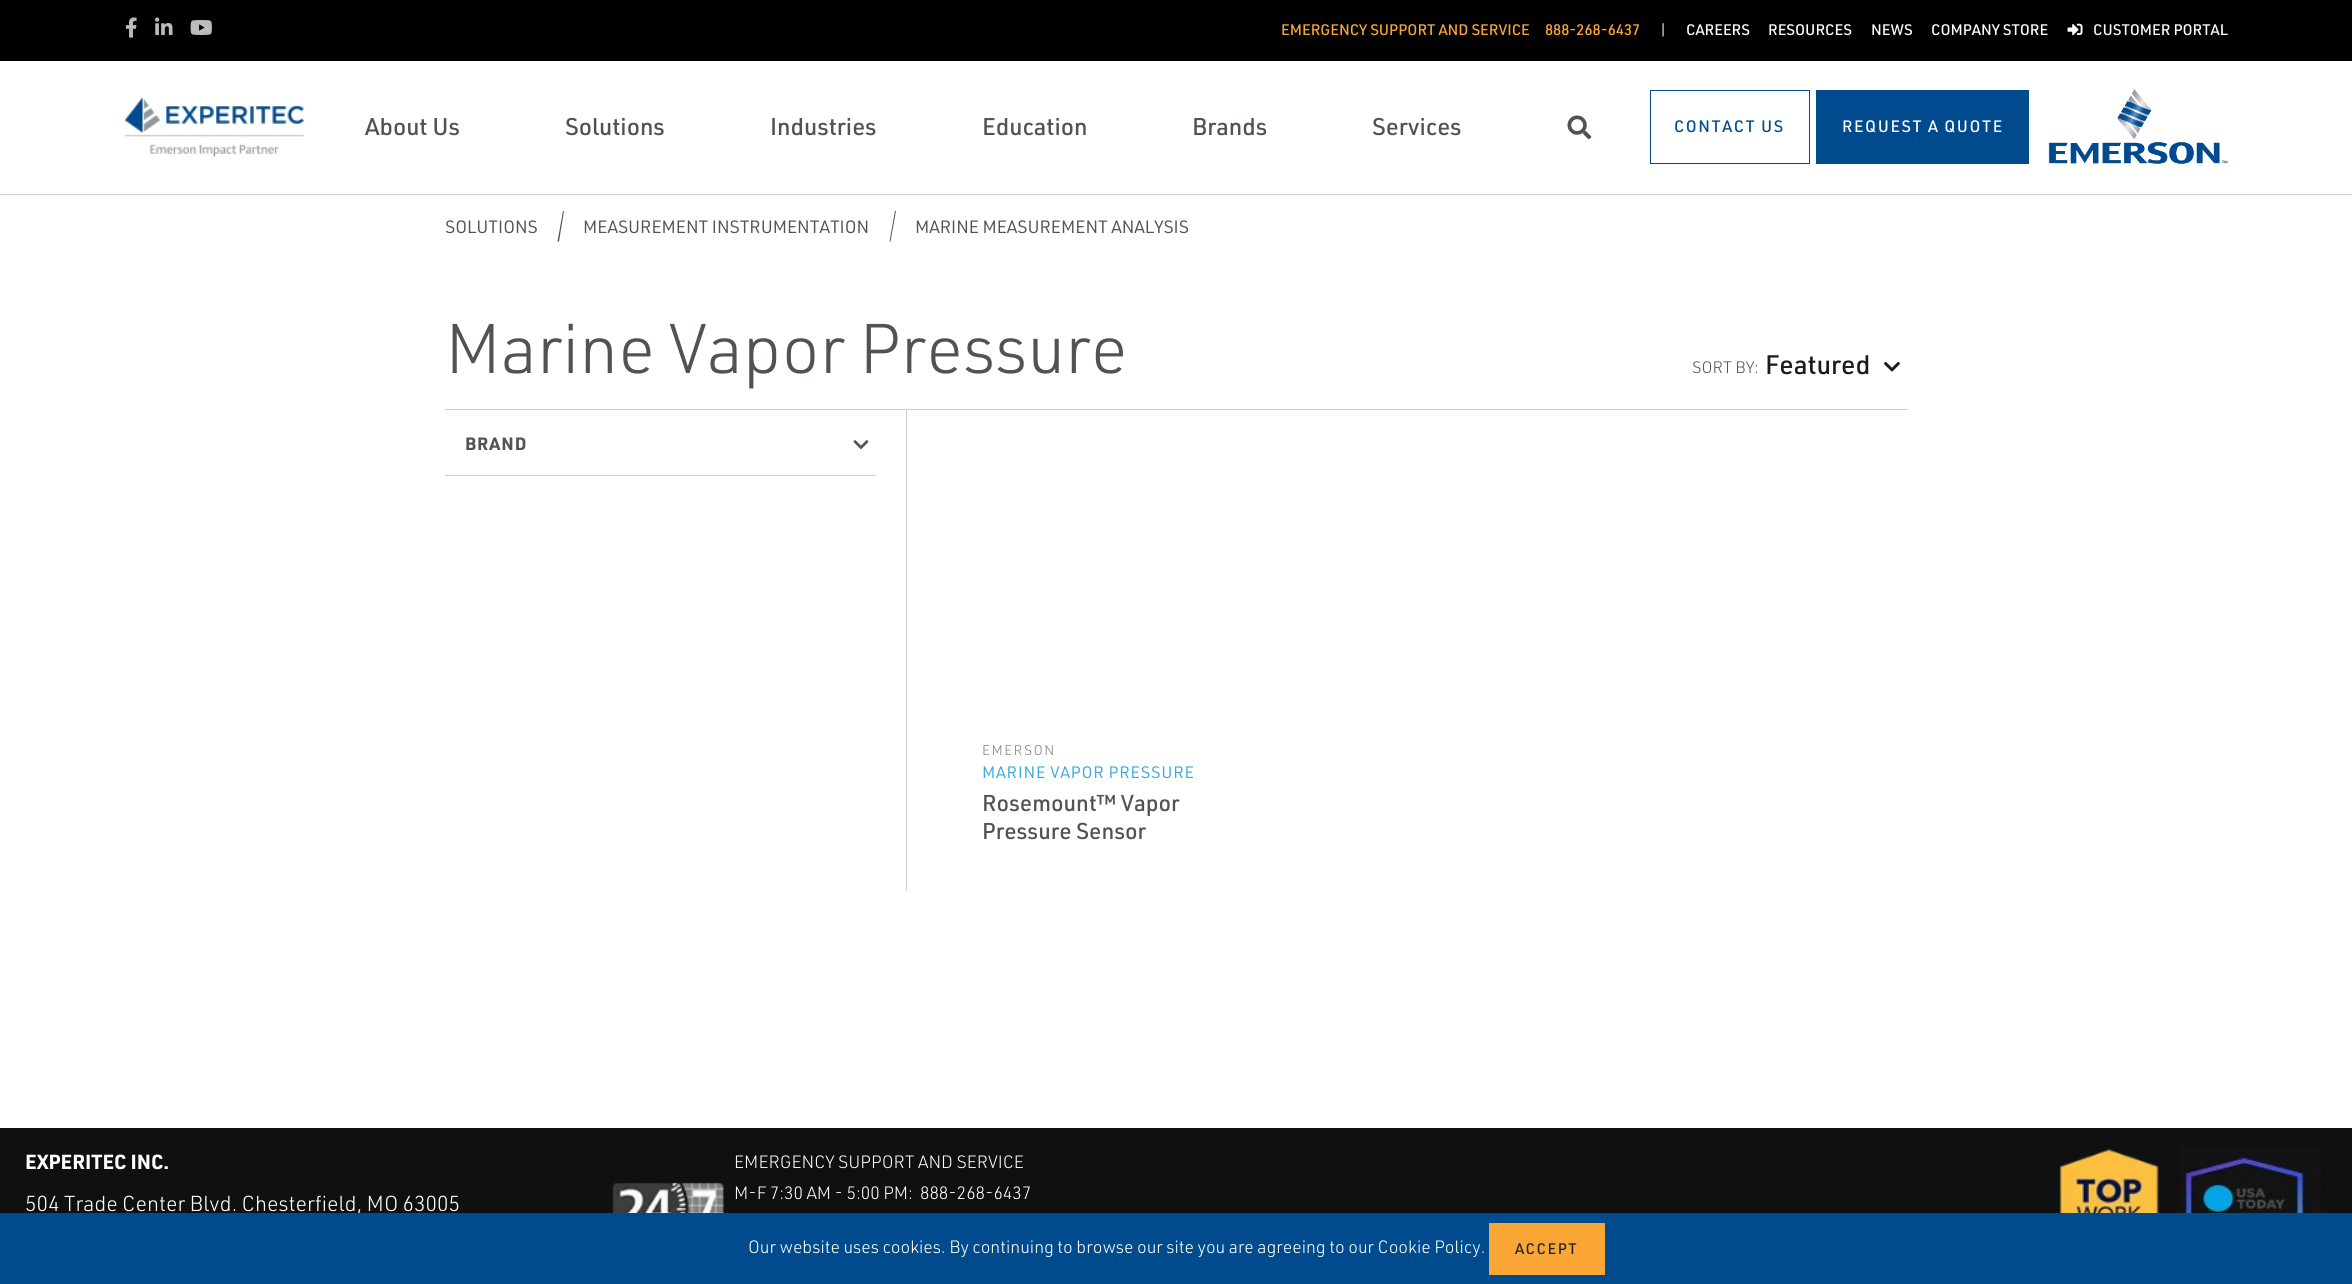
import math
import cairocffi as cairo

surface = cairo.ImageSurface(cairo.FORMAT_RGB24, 2352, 1284)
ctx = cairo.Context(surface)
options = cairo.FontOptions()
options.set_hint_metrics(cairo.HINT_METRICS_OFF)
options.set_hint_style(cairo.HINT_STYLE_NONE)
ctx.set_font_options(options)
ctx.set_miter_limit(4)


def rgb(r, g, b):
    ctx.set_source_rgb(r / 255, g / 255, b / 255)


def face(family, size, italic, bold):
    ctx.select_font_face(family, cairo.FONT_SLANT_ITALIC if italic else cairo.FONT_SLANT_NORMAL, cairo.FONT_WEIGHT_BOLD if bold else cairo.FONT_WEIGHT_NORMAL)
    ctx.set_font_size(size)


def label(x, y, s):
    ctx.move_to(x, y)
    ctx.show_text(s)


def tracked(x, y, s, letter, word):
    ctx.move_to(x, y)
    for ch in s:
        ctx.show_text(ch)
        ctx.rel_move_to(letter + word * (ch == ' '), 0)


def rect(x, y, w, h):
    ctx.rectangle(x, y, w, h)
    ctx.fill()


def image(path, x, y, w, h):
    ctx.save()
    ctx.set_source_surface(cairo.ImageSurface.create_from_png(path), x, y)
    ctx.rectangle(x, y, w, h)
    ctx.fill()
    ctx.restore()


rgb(255, 255, 255)
ctx.paint()
rgb(202, 207, 208)
rect(0, 194, 2352, 1)
rgb(0, 0, 0)
rect(0, 0, 2352, 61)
image('image0.png', 125, 17, 12, 21)
image('image1.png', 155, 17, 18, 18)
image('image2.png', 190, 20, 22, 15)
face('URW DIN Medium', 15, 0, 0)
rgb(250, 166, 52)
label(1281, 35, 'EMERGENCY SUPPORT AND SERVICE')
label(1545, 35, '888-268-6437')
face('URW DIN', 15, 0, 0)
rgb(255, 255, 255)
label(1659, 35, '|')
face('URW DIN Medium', 15, 0, 0)
label(1686, 35, 'CAREERS')
label(1768, 35, 'RESOURCES')
label(1871, 35, 'NEWS')
label(1931, 35, 'COMPANY STORE')
image('image3.png', 2067, 23, 16, 13)
label(2093, 35, 'CUSTOMER PORTAL')
image('image4.png', 125, 97, 179, 60)
face('URW DIN Medium', 23.75, 0, 0)
rgb(80, 83, 84)
label(365, 135, 'About Us')
label(565, 135, 'Solutions')
label(770, 135, 'Industries')
label(982, 135, 'Education')
label(1192, 135, 'Brands')
label(1372, 135, 'Services')
image('image5.png', 1567, 115, 25, 25)
ctx.rectangle(1650.5, 90.5, 159, 73)
rgb(0, 75, 141)
ctx.set_line_width(1)
ctx.stroke()
face('URW DIN Medium', 16.25, 0, 0)
tracked(1674, 132, 'CONTACT US', 1.6, 0)
rect(1816, 90, 213, 74)
rgb(255, 255, 255)
tracked(1842, 132, 'REQUEST A QUOTE', 1.6, 0)
image('image6.png', 2048, 89, 180, 75)
face('URW DIN', 17.5, 0, 0)
rgb(80, 83, 84)
label(445, 233, 'SOLUTIONS')
ctx.new_path()
ctx.move_to(563, 211)
ctx.line_to(564, 211)
ctx.line_to(559, 241.5)
ctx.line_to(557.5, 241.5)
ctx.close_path()
ctx.fill()
label(583, 233, 'MEASUREMENT INSTRUMENTATION')
ctx.new_path()
ctx.move_to(895, 211)
ctx.line_to(896, 211)
ctx.line_to(890.5, 241.5)
ctx.line_to(889.5, 241.5)
ctx.close_path()
ctx.fill()
label(915, 233, 'MARINE MEASUREMENT ANALYSIS')
rgb(202, 207, 208)
rect(445, 409, 1463, 1)
face('URW DIN Light', 68.75, 0, 0)
rgb(80, 83, 84)
label(445, 373, 'Marine Vapor Pressure')
face('URW DIN Light', 16.25, 0, 0)
label(1692, 373, 'SORT BY:')
face('URW DIN Medium', 26.25, 0, 0)
rgb(28, 28, 28)
label(1765, 374, 'Featured')
image('image7.png', 1884, 361, 16, 11)
rgb(202, 207, 208)
rect(906, 410, 1, 481)
rect(445, 475, 431, 1)
face('URW DIN', 17.5, 0, 1)
rgb(80, 83, 84)
tracked(465, 450, 'BRAND', 1, 0)
image('image8.png', 853, 440, 16, 10)
face('URW DIN Light', 13.75, 0, 0)
rgb(128, 128, 128)
tracked(982, 755, 'EMERSON', 1.5, 0)
face('URW DIN', 16.25, 0, 0)
rgb(56, 168, 224)
tracked(982, 778, 'MARINE VAPOR PRESSURE', 0.8, 0)
face('URW DIN Medium', 22.5, 0, 0)
rgb(80, 83, 84)
label(982, 811, 'Rosemount™ Vapor')
label(982, 839, 'Pressure Sensor')
rgb(16, 16, 16)
rect(0, 1128, 2352, 85)
face('URW DIN Light', 21.25, 0, 0)
rgb(255, 255, 255)
label(25, 1211, '504 Trade Center Blvd. Chesterfield, MO 63005')
rgb(0, 75, 141)
rect(0, 1213, 2352, 71)
face('URW DIN Light', 17.5, 0, 0)
rgb(255, 255, 255)
label(748, 1253, 'Our website uses cookies. By continuing to browse our site you are agreeing to our Cookie Policy.')
rgb(250, 166, 52)
rect(1489, 1223, 116, 52)
face('URW DIN Medium', 15, 0, 0)
rgb(33, 37, 41)
tracked(1515, 1254, 'ACCEPT', 1.5, 0)
face('URW DIN', 20, 0, 1)
rgb(255, 255, 255)
label(25, 1169, 'EXPERITEC INC.')
face('URW DIN Light', 17.5, 0, 0)
label(734, 1168, 'EMERGENCY SUPPORT AND SERVICE')
image('image9.png', 612, 1182, 112, 31)
label(734, 1199, 'M-F 7:30 AM - 5:00 PM:  888-268-6437')
image('image10.png', 2059, 1148, 100, 65)
image('image11.png', 2180, 1146, 141, 67)
surface.write_to_png('render.png')
